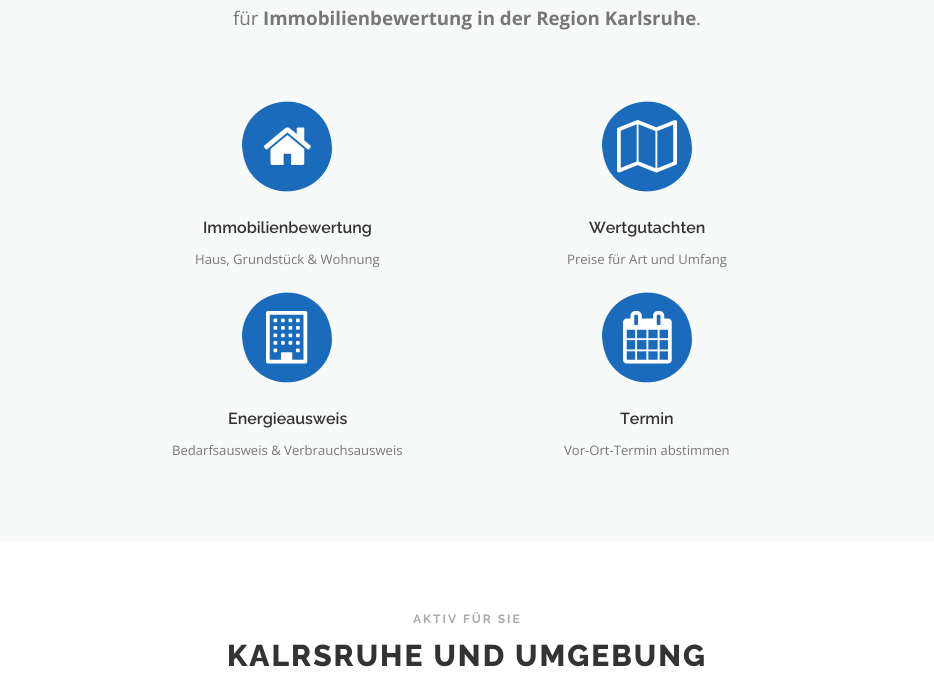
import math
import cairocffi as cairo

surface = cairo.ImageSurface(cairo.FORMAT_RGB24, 934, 679)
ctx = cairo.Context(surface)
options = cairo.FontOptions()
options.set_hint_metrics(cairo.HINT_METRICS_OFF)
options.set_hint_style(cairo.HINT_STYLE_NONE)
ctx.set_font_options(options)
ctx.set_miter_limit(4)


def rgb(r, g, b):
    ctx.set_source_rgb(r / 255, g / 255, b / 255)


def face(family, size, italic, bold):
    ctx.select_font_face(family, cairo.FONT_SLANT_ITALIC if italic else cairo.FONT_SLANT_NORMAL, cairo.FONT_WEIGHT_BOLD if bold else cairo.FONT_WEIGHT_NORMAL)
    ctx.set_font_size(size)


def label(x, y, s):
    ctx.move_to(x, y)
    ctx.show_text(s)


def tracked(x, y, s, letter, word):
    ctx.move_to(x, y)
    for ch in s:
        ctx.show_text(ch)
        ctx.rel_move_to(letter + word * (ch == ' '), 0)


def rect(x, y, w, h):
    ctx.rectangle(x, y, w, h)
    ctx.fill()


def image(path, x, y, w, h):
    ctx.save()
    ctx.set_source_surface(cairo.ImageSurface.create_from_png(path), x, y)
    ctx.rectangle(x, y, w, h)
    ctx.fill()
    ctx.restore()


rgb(255, 255, 255)
ctx.paint()
rgb(248, 249, 249)
rect(0, 0, 934, 541)
face('Open Sans', 18.75, 0, 0)
rgb(119, 119, 119)
label(233, 25, 'für')
face('Open Sans', 18.75, 0, 1)
label(263, 25, 'Immobilienbewertung in der Region Karlsruhe')
face('Open Sans', 18.75, 0, 0)
label(696, 25, '.')
rgb(26, 107, 188)
ctx.new_path()
ctx.move_to(326, 124)
ctx.curve_to(330, 132, 332, 141, 332, 150)
ctx.curve_to(329, 194, 270, 207, 248, 169)
ctx.curve_to(244, 161, 242, 152, 242, 143)
ctx.curve_to(245, 99, 304, 86, 326, 124)
ctx.close_path()
ctx.fill()
image('image0.png', 263, 127, 48, 38)
face('Raleway SemiBold', 16, 0, 0)
rgb(51, 51, 51)
label(203, 233, 'Immobilienbewertung')
face('Open Sans', 13.1, 0, 0)
rgb(119, 119, 119)
label(195, 264, 'Haus, Grundstück & Wohnung')
rgb(26, 107, 188)
ctx.new_path()
ctx.move_to(686, 124)
ctx.curve_to(690, 132, 692, 141, 692, 150)
ctx.curve_to(689, 194, 630, 207, 608, 169)
ctx.curve_to(604, 161, 602, 152, 602, 143)
ctx.curve_to(605, 99, 664, 86, 686, 124)
ctx.close_path()
ctx.fill()
image('image1.png', 617, 120, 60, 53)
face('Raleway SemiBold', 16, 0, 0)
rgb(51, 51, 51)
label(589, 233, 'Wertgutachten')
face('Open Sans', 13.1, 0, 0)
rgb(119, 119, 119)
label(567, 264, 'Preise für Art und Umfang')
rgb(26, 107, 188)
ctx.new_path()
ctx.move_to(326, 315)
ctx.curve_to(330, 323, 332, 332, 332, 341)
ctx.curve_to(329, 385, 270, 398, 248, 360)
ctx.curve_to(244, 352, 242, 343, 242, 334)
ctx.curve_to(245, 290, 304, 277, 326, 315)
ctx.close_path()
ctx.fill()
image('image2.png', 266, 311, 42, 53)
face('Raleway SemiBold', 16, 0, 0)
rgb(51, 51, 51)
label(228, 424, 'Energieausweis')
face('Open Sans', 13.1, 0, 0)
rgb(119, 119, 119)
label(172, 455, 'Bedarfsausweis & Verbrauchsausweis')
rgb(26, 107, 188)
ctx.new_path()
ctx.move_to(686, 315)
ctx.curve_to(690, 323, 692, 332, 692, 341)
ctx.curve_to(689, 385, 630, 398, 608, 360)
ctx.curve_to(604, 352, 602, 343, 602, 334)
ctx.curve_to(605, 290, 664, 277, 686, 315)
ctx.close_path()
ctx.fill()
image('image3.png', 623, 311, 49, 53)
face('Raleway SemiBold', 16, 0, 0)
rgb(51, 51, 51)
label(620, 424, 'Termin')
face('Open Sans', 13.1, 0, 0)
rgb(119, 119, 119)
label(564, 455, 'Vor-Ort-Termin abstimmen')
face('Raleway', 12, 0, 1)
rgb(170, 170, 170)
tracked(413, 623, 'AKTIV FÜR SIE', 2, 0)
face('Raleway ExtraBold', 30, 0, 0)
rgb(51, 51, 51)
tracked(227, 666, 'KALRSRUHE UND UMGEBUNG', 2, 0)
surface.write_to_png('render.png')
